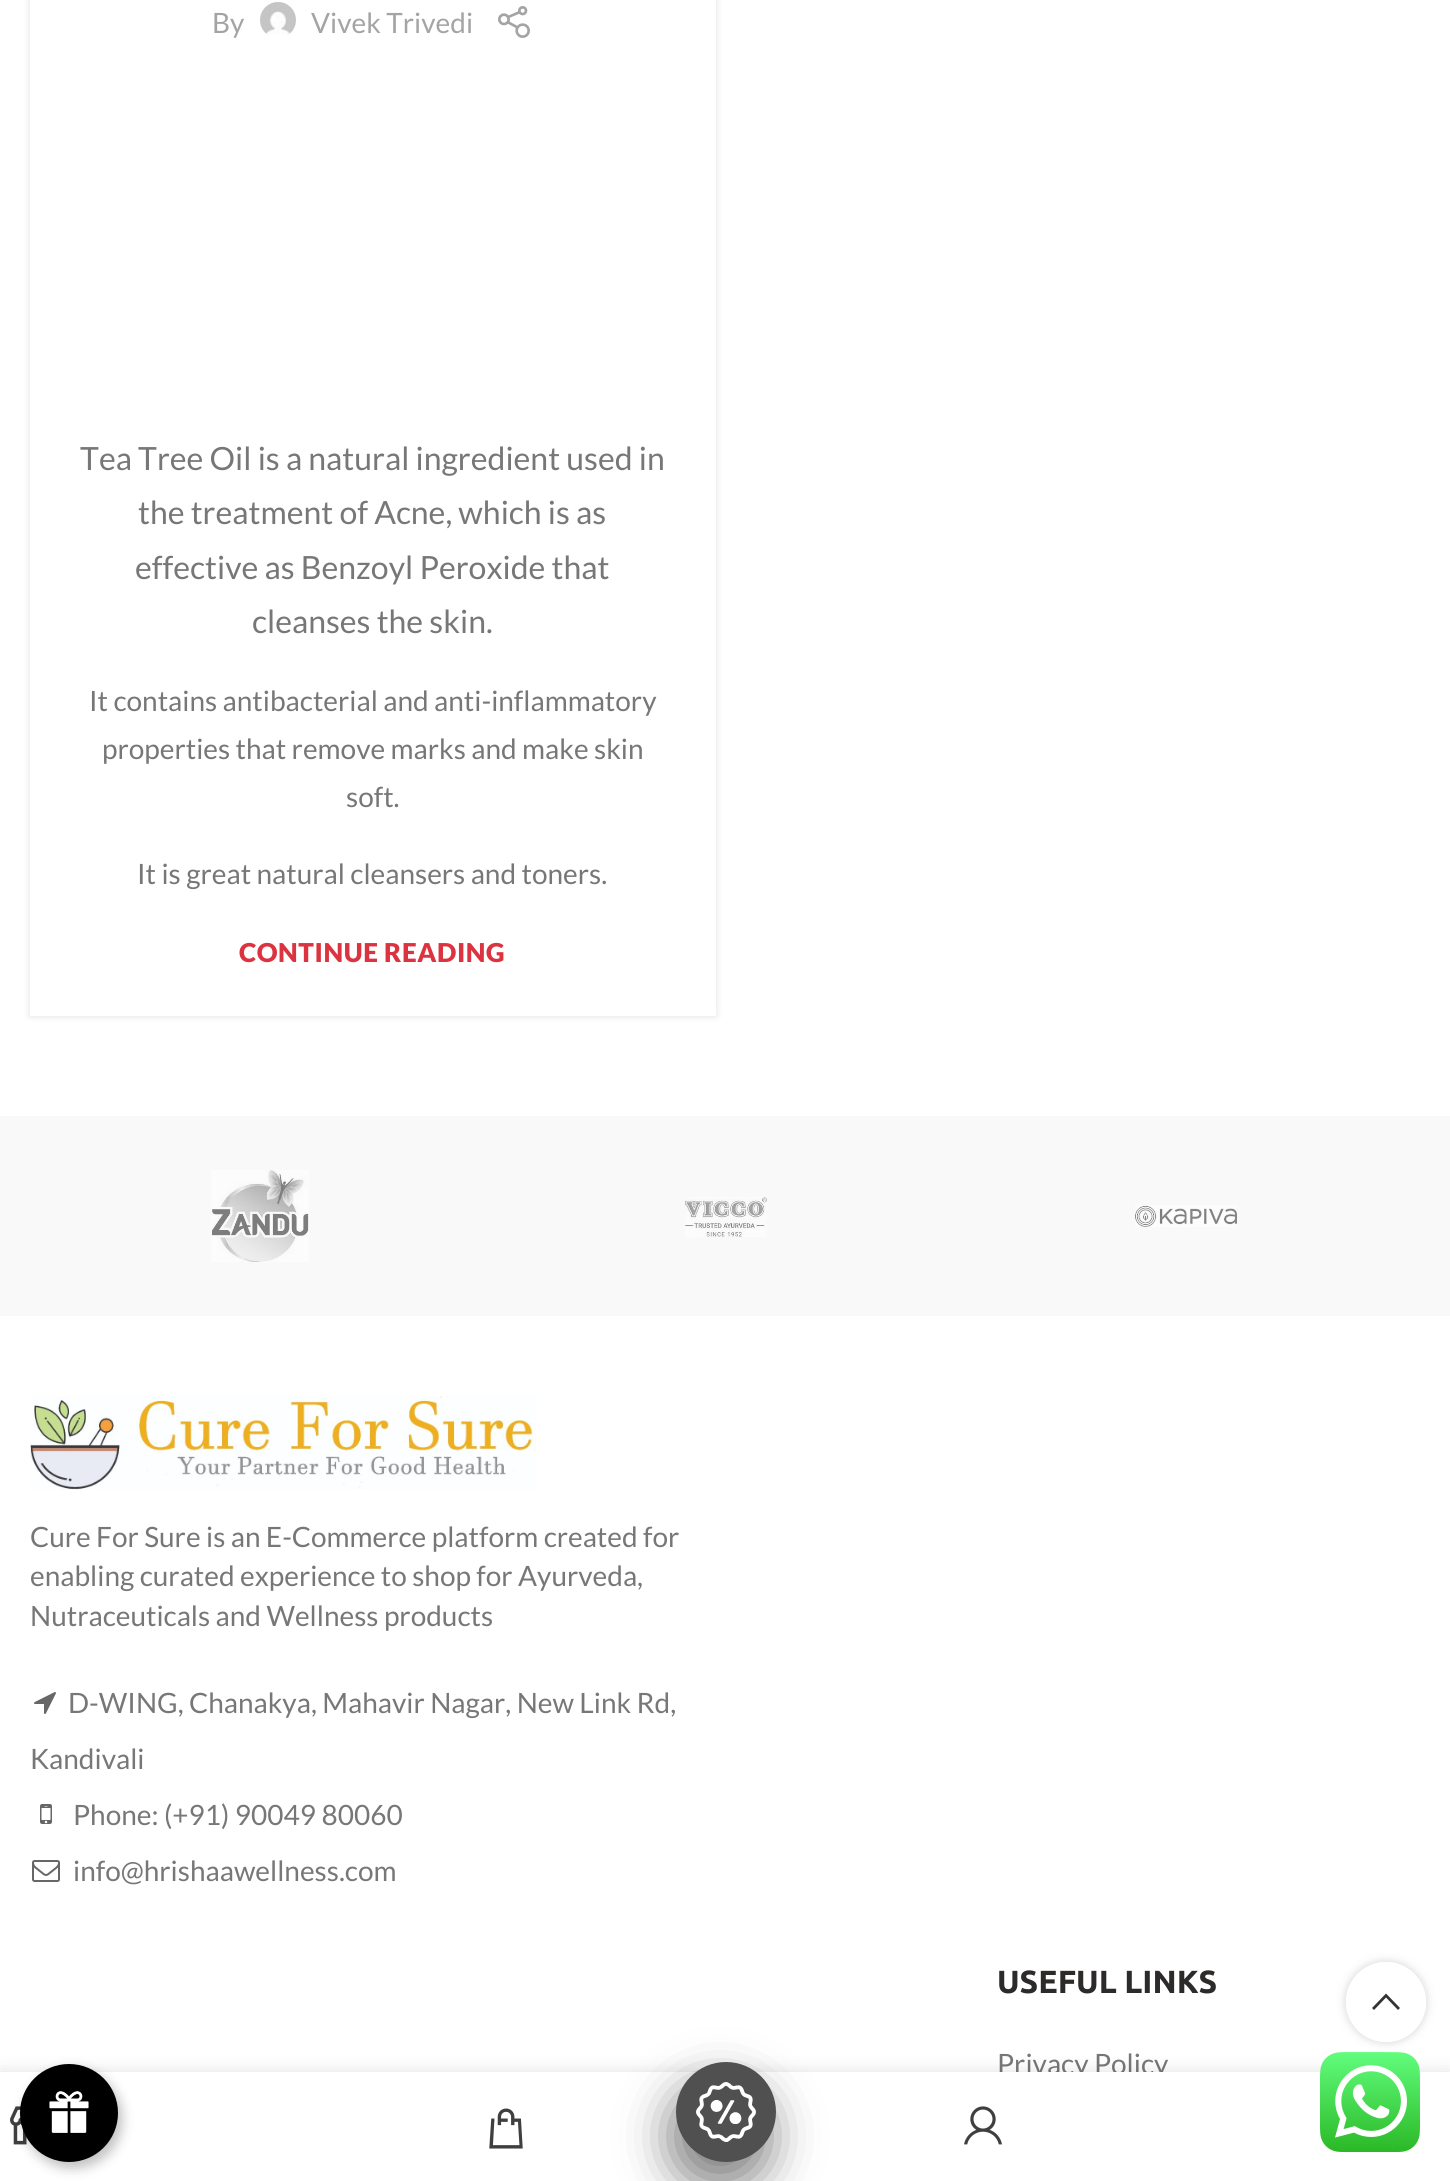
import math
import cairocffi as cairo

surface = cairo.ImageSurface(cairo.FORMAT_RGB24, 1450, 2181)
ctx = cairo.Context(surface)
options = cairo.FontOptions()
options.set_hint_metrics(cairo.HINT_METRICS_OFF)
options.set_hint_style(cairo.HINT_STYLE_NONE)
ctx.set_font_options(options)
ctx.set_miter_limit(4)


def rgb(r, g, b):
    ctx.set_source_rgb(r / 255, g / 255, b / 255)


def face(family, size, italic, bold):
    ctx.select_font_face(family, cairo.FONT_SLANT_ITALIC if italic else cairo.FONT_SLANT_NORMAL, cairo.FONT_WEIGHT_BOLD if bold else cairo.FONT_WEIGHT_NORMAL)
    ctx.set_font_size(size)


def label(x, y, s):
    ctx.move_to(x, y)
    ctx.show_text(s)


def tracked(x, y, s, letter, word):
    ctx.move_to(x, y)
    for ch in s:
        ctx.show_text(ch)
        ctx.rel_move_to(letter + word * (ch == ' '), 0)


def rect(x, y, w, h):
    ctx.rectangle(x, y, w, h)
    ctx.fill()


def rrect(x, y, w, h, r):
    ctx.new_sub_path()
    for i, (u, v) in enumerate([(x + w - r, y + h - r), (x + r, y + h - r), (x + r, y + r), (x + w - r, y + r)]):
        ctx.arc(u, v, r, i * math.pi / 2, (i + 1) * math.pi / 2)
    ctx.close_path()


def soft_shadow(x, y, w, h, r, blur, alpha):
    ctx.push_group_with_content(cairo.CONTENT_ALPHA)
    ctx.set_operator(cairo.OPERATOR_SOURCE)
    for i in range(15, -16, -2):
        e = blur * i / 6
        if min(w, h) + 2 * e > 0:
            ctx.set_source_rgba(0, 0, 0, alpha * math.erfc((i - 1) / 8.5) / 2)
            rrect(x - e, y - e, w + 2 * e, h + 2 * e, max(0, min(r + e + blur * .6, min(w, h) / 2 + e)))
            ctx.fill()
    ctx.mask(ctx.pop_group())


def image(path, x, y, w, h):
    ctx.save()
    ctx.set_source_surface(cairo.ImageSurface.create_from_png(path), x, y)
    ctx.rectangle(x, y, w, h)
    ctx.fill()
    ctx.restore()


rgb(255, 255, 255)
ctx.paint()
ctx.save()
ctx.set_fill_rule(cairo.FILL_RULE_EVEN_ODD)
ctx.new_path()
ctx.move_to(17, 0)
ctx.line_to(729, 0)
ctx.line_to(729, 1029)
ctx.line_to(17, 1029)
ctx.close_path()
ctx.move_to(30, -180)
ctx.line_to(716, -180)
ctx.line_to(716, 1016)
ctx.line_to(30, 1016)
ctx.close_path()
ctx.clip()
rgb(0, 0, 0)
soft_shadow(30, -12, 686, 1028, 0, 4, 0.12)
ctx.restore()
face('Lato', 28, 0, 0)
rgb(164, 164, 164)
label(212, 33, 'By')
image('image0.png', 260, 2, 36, 33)
label(311, 33, 'Vivek Trivedi')
image('image1.png', 498, 6, 32, 32)
face('Lato', 32, 0, 0)
rgb(119, 119, 119)
label(80, 470, 'Tea Tree Oil is a natural ingredient used in')
label(138, 524, 'the treatment of Acne, which is as')
label(135, 579, 'effective as Benzoyl Peroxide that')
label(252, 633, 'cleanses the skin.')
face('Lato', 28, 0, 0)
label(89, 711, 'It contains antibacterial and anti-inflammatory')
label(102, 759, 'properties that remove marks and make skin')
label(346, 807, 'soft.')
label(137, 884, 'It is great natural cleansers and toners.')
face('Lato Black', 26, 0, 0)
rgb(219, 51, 64)
tracked(239, 962, 'CONTINUE READING', 0.6, 0)
rgb(249, 249, 249)
rect(0, 1116, 1450, 200)
image('image2.png', 211, 1170, 98, 92)
image('image3.png', 685, 1197, 82, 40)
image('image4.png', 1135, 1205, 102, 22)
image('image5.png', 30, 1396, 506, 94)
face('Lato', 28, 0, 0)
rgb(119, 119, 119)
label(30, 1547, 'Cure For Sure is an E-Commerce platform created for')
label(30, 1586, 'enabling curated experience to shop for Ayurveda,')
label(30, 1626, 'Nutraceuticals and Wellness products')
image('image6.png', 34, 1692, 22, 22)
label(68, 1713, 'D-WING, Chanakya, Mahavir Nagar, New Link Rd,')
label(30, 1769, 'Kandivali')
image('image7.png', 40, 1804, 12, 20)
label(73, 1825, 'Phone: (+91) 90049 80060')
image('image8.png', 32, 1860, 28, 22)
label(73, 1881, 'info@hrishaawellness.com')
face('Ubuntu', 32, 0, 1)
rgb(45, 42, 42)
label(997, 1993, 'USEFUL LINKS')
face('Lato', 28, 0, 0)
rgb(119, 119, 119)
label(997, 2074, 'Privacy Policy')
ctx.save()
ctx.set_fill_rule(cairo.FILL_RULE_EVEN_ODD)
ctx.new_path()
ctx.move_to(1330, 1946)
ctx.line_to(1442, 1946)
ctx.line_to(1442, 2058)
ctx.line_to(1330, 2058)
ctx.close_path()
ctx.move_to(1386, 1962)
ctx.curve_to(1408, 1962, 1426, 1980, 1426, 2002)
ctx.curve_to(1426, 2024, 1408, 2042, 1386, 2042)
ctx.curve_to(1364, 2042, 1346, 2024, 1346, 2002)
ctx.curve_to(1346, 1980, 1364, 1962, 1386, 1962)
ctx.close_path()
ctx.clip()
rgb(0, 0, 0)
soft_shadow(1346, 1962, 80, 80, 40, 5, 0.17)
ctx.restore()
ctx.set_source_rgba(1, 1, 1, 0.9)
ctx.arc(1386, 2002, 40, 0, 2 * math.pi)
ctx.fill()
rgb(51, 51, 51)
ctx.new_path()
ctx.move_to(1386, 1993.5)
ctx.line_to(1400, 2008)
ctx.line_to(1398, 2010)
ctx.line_to(1386, 1997.5)
ctx.line_to(1374, 2010)
ctx.line_to(1372, 2008)
ctx.close_path()
ctx.fill()
rgb(0, 0, 0)
soft_shadow(0, 2072, 1450, 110, 0, 9, 0.12)
rgb(255, 255, 255)
rect(0, 2072, 1450, 109)
image('image9.png', 1320, 2052, 100, 100)
rgb(0, 0, 0)
soft_shadow(670, 2086, 100, 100, 50, 24, 0.5)
rgb(80, 80, 80)
ctx.arc(726, 2112, 50, 0, 2 * math.pi)
ctx.fill()
image('image10.png', 696, 2082, 60, 60)
image('image11.png', 10, 2106, 17, 39)
image('image12.png', 489, 2108, 34, 41)
image('image13.png', 964, 2106, 38, 39)
rgb(0, 0, 0)
soft_shadow(24, 2070, 98, 98, 49, 6, 0.25)
rgb(0, 0, 0)
ctx.arc(69, 2113, 49, 0, 2 * math.pi)
ctx.fill()
image('image14.png', 49, 2091, 40, 42)
surface.write_to_png('render.png')
